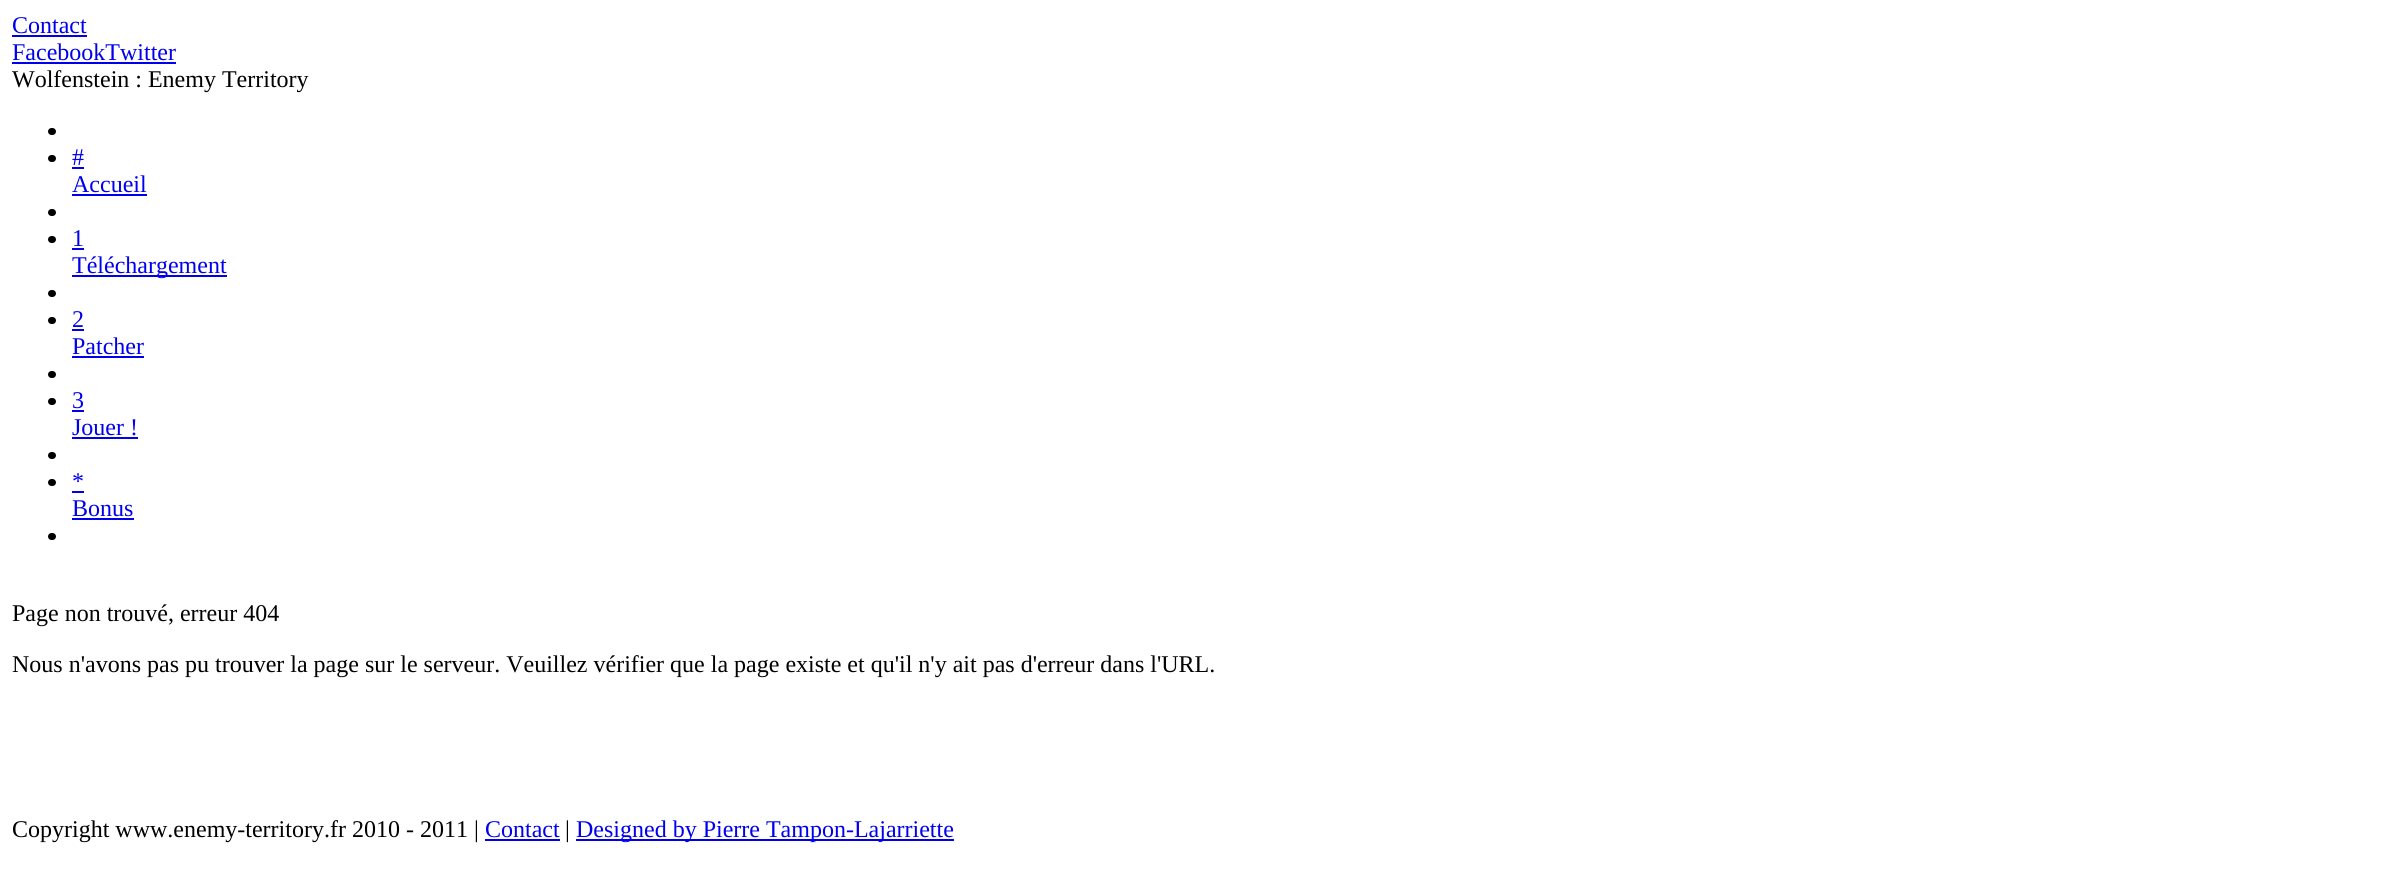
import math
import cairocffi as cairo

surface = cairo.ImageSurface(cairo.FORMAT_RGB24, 2407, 885)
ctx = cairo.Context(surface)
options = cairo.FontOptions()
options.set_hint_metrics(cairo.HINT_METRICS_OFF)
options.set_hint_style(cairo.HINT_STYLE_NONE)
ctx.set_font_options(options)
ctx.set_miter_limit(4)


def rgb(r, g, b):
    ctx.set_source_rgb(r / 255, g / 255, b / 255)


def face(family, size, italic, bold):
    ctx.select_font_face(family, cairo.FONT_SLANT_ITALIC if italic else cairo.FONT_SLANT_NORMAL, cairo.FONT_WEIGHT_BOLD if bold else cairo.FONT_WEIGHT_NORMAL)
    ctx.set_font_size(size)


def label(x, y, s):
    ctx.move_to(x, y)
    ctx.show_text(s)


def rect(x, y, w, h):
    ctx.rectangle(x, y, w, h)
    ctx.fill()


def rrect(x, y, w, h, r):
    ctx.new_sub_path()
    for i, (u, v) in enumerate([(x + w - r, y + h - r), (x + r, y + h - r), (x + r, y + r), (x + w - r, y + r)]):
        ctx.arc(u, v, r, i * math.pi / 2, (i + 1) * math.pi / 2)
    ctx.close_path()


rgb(255, 255, 255)
ctx.paint()
face('Liberation Serif', 24, 0, 0)
rgb(0, 0, 238)
label(12, 33, 'Contact')
rect(12, 35, 75, 2)
label(12, 60, 'FacebookTwitter')
rect(12, 62, 164, 2)
rgb(0, 0, 0)
label(12, 87, 'Wolfenstein : Enemy Territory')
rrect(48, 128, 8, 7, 3.5)
ctx.fill()
rrect(48, 155, 8, 7, 3.5)
ctx.fill()
rgb(0, 0, 238)
label(72, 165, '#')
rect(72, 167, 12, 2)
label(72, 192, 'Accueil')
rect(72, 194, 75, 2)
rgb(0, 0, 0)
rrect(48, 209, 8, 7, 3.5)
ctx.fill()
rrect(48, 236, 8, 7, 3.5)
ctx.fill()
rgb(0, 0, 238)
label(72, 246, '1')
rect(72, 248, 12, 2)
rect(72, 275, 155, 2)
label(72, 273, 'Téléchargement')
rgb(0, 0, 0)
rrect(48, 290, 8, 7, 3.5)
ctx.fill()
rrect(48, 317, 8, 7, 3.5)
ctx.fill()
rgb(0, 0, 238)
label(72, 327, '2')
rect(72, 329, 12, 2)
label(72, 354, 'Patcher')
rect(72, 356, 72, 2)
rgb(0, 0, 0)
rrect(48, 371, 8, 7, 3.5)
ctx.fill()
rrect(48, 398, 8, 7, 3.5)
ctx.fill()
rgb(0, 0, 238)
label(72, 408, '3')
rect(72, 410, 12, 2)
label(72, 435, 'Jouer !')
rect(72, 437, 66, 2)
rgb(0, 0, 0)
rrect(48, 452, 8, 7, 3.5)
ctx.fill()
rrect(48, 479, 8, 7, 3.5)
ctx.fill()
rgb(0, 0, 238)
label(72, 489, '*')
rect(72, 491, 12, 2)
label(72, 516, 'Bonus')
rect(72, 518, 62, 2)
rgb(0, 0, 0)
rrect(48, 533, 8, 7, 3.5)
ctx.fill()
label(12, 621, 'Page non trouvé, erreur 404')
label(12, 672, 'Nous n\'avons pas pu trouver la page sur le serveur. Veuillez vérifier que la page existe et qu\'il n\'y ait pas d\'erreur dans l\'URL.')
label(12, 837, 'Copyright www.enemy-territory.fr 2010 - 2011 |')
rgb(0, 0, 238)
label(485, 837, 'Contact')
rect(485, 839, 75, 2)
rgb(0, 0, 0)
label(565, 837, '|')
rgb(0, 0, 238)
rect(576, 839, 378, 2)
label(576, 837, 'Designed by Pierre Tampon-Lajarriette')
surface.write_to_png('render.png')
